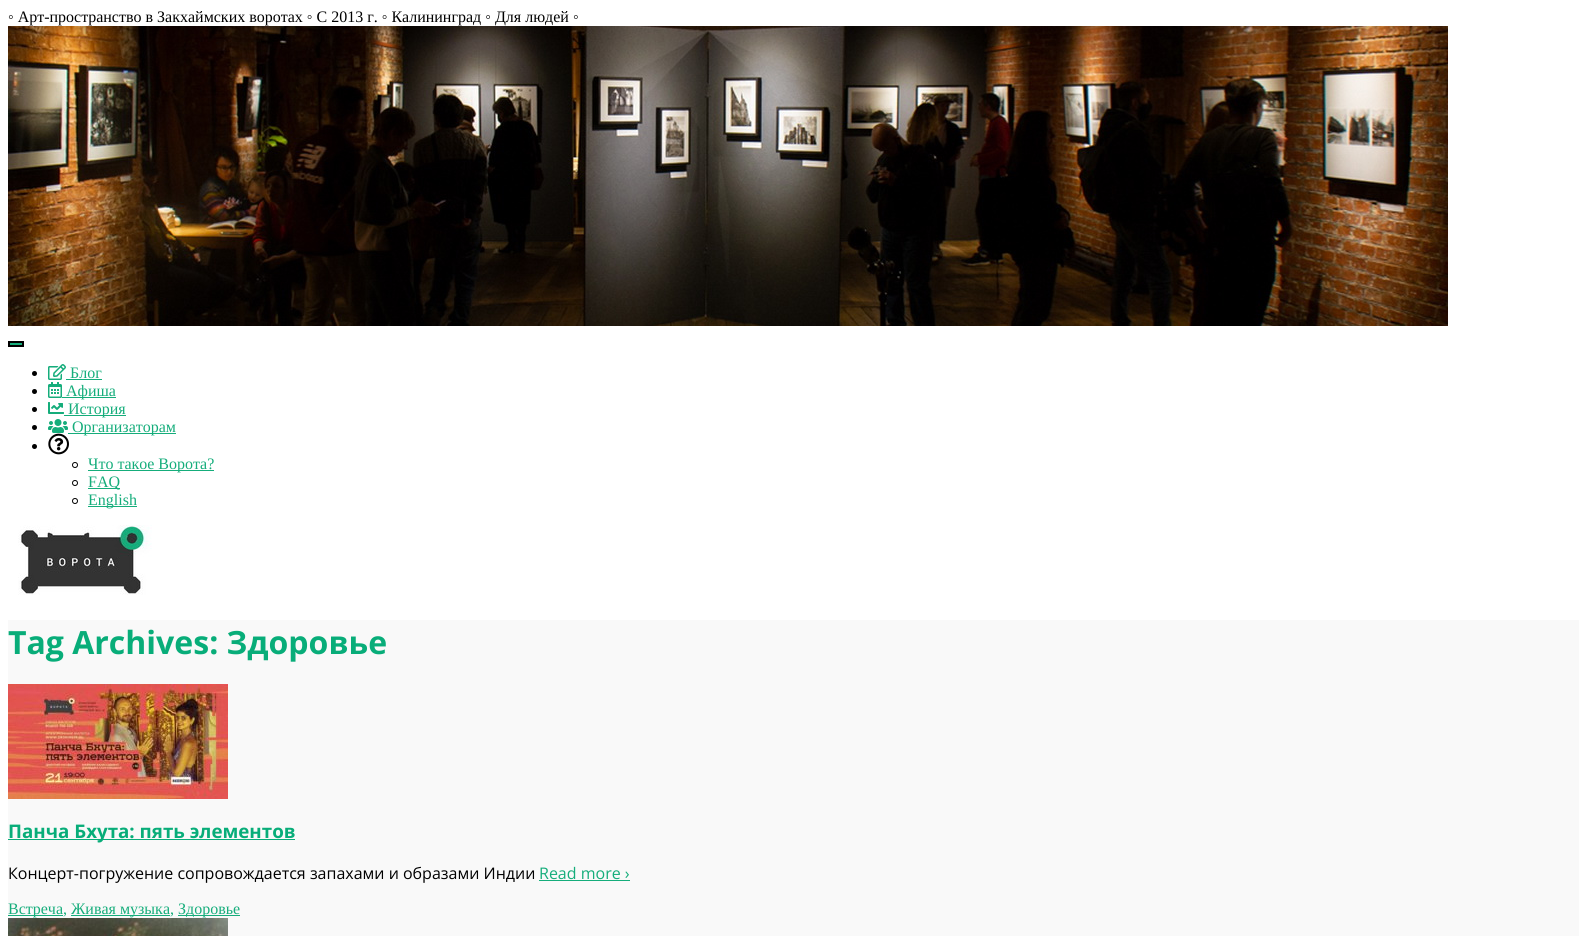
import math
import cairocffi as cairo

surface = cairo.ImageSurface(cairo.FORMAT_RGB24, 1587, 936)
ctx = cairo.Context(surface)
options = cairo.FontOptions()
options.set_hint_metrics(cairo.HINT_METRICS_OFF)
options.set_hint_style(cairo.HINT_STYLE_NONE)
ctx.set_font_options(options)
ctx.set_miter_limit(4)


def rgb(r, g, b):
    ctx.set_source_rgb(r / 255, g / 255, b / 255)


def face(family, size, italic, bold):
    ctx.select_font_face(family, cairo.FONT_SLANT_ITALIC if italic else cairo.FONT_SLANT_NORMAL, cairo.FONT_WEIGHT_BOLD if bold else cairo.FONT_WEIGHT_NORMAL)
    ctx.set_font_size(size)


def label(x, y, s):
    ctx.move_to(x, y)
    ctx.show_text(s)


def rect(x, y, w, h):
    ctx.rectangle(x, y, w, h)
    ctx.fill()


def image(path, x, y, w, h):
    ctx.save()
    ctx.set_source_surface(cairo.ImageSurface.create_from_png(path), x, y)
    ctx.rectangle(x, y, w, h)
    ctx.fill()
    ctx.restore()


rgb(255, 255, 255)
ctx.paint()
face('Liberation Serif', 16, 0, 0)
rgb(0, 0, 0)
label(8, 22, '◦ Арт-пространство в Закхаймских воротах ◦ С 2013 г. ◦ Калининград ◦ Для людей ◦')
image('image0.png', 8, 26, 1440, 300)
rgb(21, 173, 123)
ctx.rectangle(9, 342, 14, 4)
ctx.fill_preserve()
rgb(0, 0, 0)
ctx.stroke()
ctx.arc(34.5, 373.5, 2.5, 0, 2 * math.pi)
ctx.fill()
image('image1.png', 48, 364, 18, 16)
rgb(21, 173, 123)
label(70, 378, 'Блог')
rect(66, 379, 36, 1)
rgb(0, 0, 0)
ctx.new_path()
ctx.arc(34.5, 391.5, 2.5, 0, 2 * math.pi)
ctx.fill()
image('image2.png', 48, 382, 14, 16)
rgb(21, 173, 123)
rect(62, 397, 54, 1)
label(66, 396, 'Афиша')
rgb(0, 0, 0)
ctx.new_path()
ctx.arc(34.5, 409.5, 2.5, 0, 2 * math.pi)
ctx.fill()
image('image3.png', 48, 402, 16, 12)
rgb(21, 173, 123)
rect(64, 415, 62, 1)
label(68, 414, 'История')
rgb(0, 0, 0)
ctx.new_path()
ctx.arc(34.5, 427.5, 2.5, 0, 2 * math.pi)
ctx.fill()
image('image4.png', 48, 419, 20, 14)
rgb(21, 173, 123)
rect(68, 433, 108, 1)
label(72, 432, 'Организаторам')
rgb(0, 0, 0)
ctx.new_path()
ctx.arc(34.5, 446.5, 2.5, 0, 2 * math.pi)
ctx.fill()
image('image5.png', 48, 433, 21, 22)
ctx.arc(75, 465, 2.5, 0, 2 * math.pi)
ctx.set_line_width(1)
ctx.stroke()
rgb(21, 173, 123)
rect(88, 470, 126, 1)
label(88, 469, 'Что такое Ворота?')
ctx.new_path()
ctx.arc(75, 483, 2.5, 0, 2 * math.pi)
rgb(0, 0, 0)
ctx.stroke()
rgb(21, 173, 123)
rect(88, 488, 32, 1)
label(88, 487, 'FAQ')
ctx.new_path()
ctx.arc(75, 501, 2.5, 0, 2 * math.pi)
rgb(0, 0, 0)
ctx.stroke()
rgb(21, 173, 123)
rect(88, 506, 49, 1)
label(88, 505, 'English')
image('image6.png', 18, 525, 134, 70)
rgb(249, 249, 249)
rect(8, 620, 1571, 316)
face('Open Sans', 32, 0, 1)
rgb(8, 173, 121)
label(8, 654, 'Tag Archives: Здоровье')
image('image7.png', 8, 684, 220, 115)
rect(8, 839, 287, 1)
face('Open Sans', 18.75, 0, 1)
label(8, 838, 'Панча Бхута: пять элементов')
face('Open Sans', 16, 0, 0)
rgb(0, 0, 0)
label(8, 879, 'Концерт-погружение сопровождается запахами и образами Индии')
rgb(21, 173, 123)
label(539, 879, 'Read more ›')
rect(539, 880, 91, 1)
rect(8, 915, 55, 1)
face('Liberation Serif', 16, 0, 0)
label(8, 914, 'Встреча,')
rect(71, 915, 99, 1)
label(71, 914, 'Живая музыка,')
rect(178, 915, 62, 1)
label(178, 914, 'Здоровье')
image('image8.png', 8, 918, 220, 18)
surface.write_to_png('render.png')
